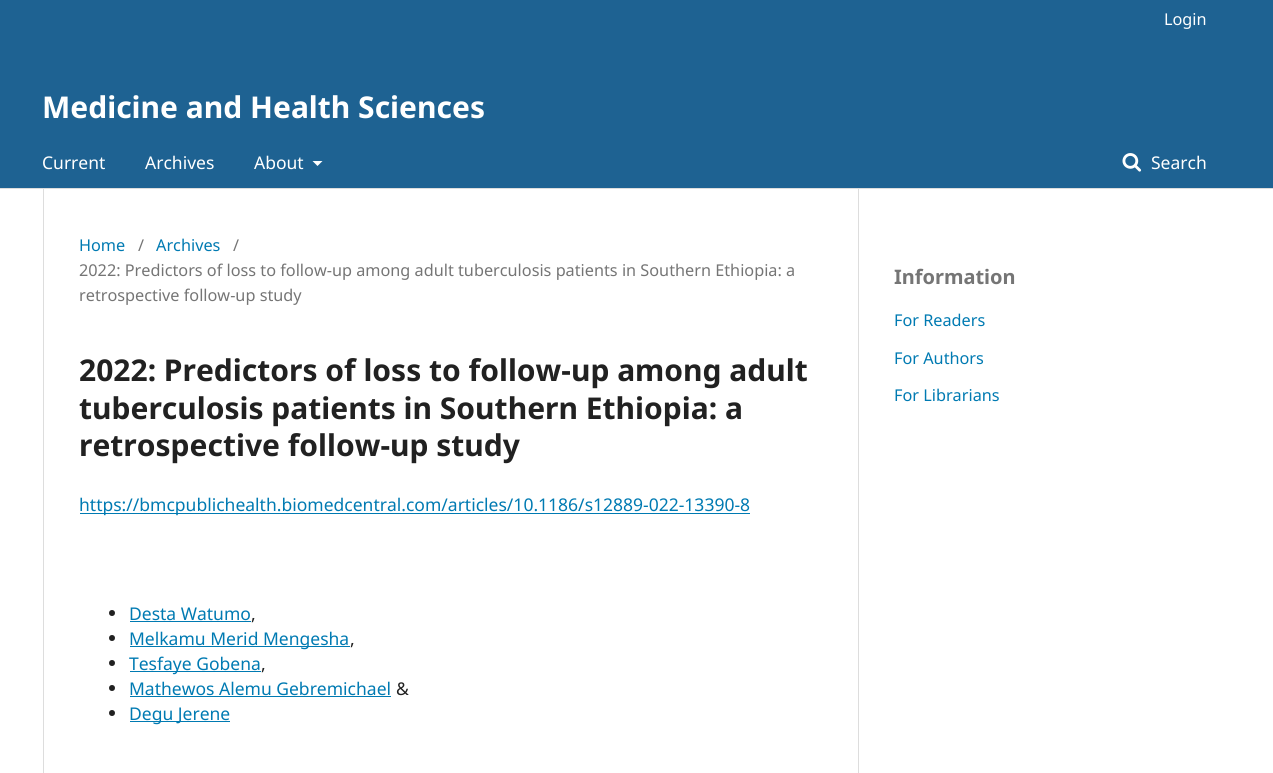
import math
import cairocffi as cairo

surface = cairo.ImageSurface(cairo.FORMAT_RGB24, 1273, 773)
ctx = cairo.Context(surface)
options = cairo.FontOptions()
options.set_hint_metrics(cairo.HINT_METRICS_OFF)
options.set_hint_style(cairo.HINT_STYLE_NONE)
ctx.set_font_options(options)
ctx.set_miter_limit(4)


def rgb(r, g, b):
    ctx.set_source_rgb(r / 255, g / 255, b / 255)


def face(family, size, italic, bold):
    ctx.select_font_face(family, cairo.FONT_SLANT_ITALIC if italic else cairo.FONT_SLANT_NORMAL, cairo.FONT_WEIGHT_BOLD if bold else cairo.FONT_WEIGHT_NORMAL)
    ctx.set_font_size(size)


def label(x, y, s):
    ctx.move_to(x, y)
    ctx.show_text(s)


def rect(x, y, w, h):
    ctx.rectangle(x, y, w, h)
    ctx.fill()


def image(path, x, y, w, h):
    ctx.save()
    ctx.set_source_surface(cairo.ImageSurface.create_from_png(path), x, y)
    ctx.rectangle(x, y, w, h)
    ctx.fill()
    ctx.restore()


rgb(255, 255, 255)
ctx.paint()
rgb(30, 98, 146)
rect(0, 0, 1273, 188)
rgb(221, 221, 221)
rect(0, 188, 1273, 1)
face('Noto Sans', 16.25, 0, 0)
rgb(255, 255, 255)
label(1164, 25, 'Login')
face('Noto Sans', 30, 0, 1)
label(42, 118, 'Medicine and Health Sciences')
face('Noto Sans', 17.5, 0, 0)
label(42, 169, 'Current')
label(145, 169, 'Archives')
label(254, 169, 'About')
ctx.new_path()
ctx.move_to(312.5, 161)
ctx.line_to(322.5, 161)
ctx.line_to(317.5, 166)
ctx.close_path()
ctx.fill()
image('image0.png', 1122, 153, 20, 19)
label(1151, 169, 'Search')
rgb(221, 221, 221)
rect(43, 189, 1, 584)
face('Noto Sans', 16.25, 0, 0)
rgb(0, 122, 178)
label(79, 251, 'Home')
rgb(117, 117, 117)
label(138, 251, '/')
rgb(0, 122, 178)
label(156, 251, 'Archives')
rgb(117, 117, 117)
label(233, 251, '/')
label(79, 276, '2022: Predictors of loss to follow-up among adult tuberculosis patients in Southern Ethiopia: a')
label(79, 301, 'retrospective follow-up study')
face('Noto Sans', 30, 0, 1)
rgb(33, 33, 33)
label(79, 381, '2022: Predictors of loss to follow-up among adult')
label(79, 419, 'tuberculosis patients in Southern Ethiopia: a')
label(79, 456, 'retrospective follow-up study')
rgb(0, 122, 178)
rect(80, 513, 670, 1)
face('Noto Sans', 17.5, 0, 0)
label(79, 511, 'https://bmcpublichealth.biomedcentral.com/articles/10.1186/s12889-022-13390-8')
rgb(33, 33, 33)
ctx.new_path()
ctx.arc(112, 613, 3, 0, 2 * math.pi)
ctx.fill()
rgb(0, 122, 178)
label(129, 620, 'Desta Watumo')
rect(130, 621, 121, 1)
rgb(33, 33, 33)
label(251, 620, ',')
ctx.new_path()
ctx.arc(112, 638, 3, 0, 2 * math.pi)
ctx.fill()
rgb(0, 122, 178)
rect(130, 646, 220, 1)
label(129, 645, 'Melkamu Merid Mengesha')
rgb(33, 33, 33)
label(350, 645, ',')
ctx.new_path()
ctx.arc(112, 663, 3, 0, 2 * math.pi)
ctx.fill()
rgb(0, 122, 178)
rect(130, 671, 131, 1)
label(129, 670, 'Tesfaye Gobena')
rgb(33, 33, 33)
label(261, 670, ',')
ctx.new_path()
ctx.arc(112, 688, 3, 0, 2 * math.pi)
ctx.fill()
rgb(0, 122, 178)
label(129, 695, 'Mathewos Alemu Gebremichael')
rect(130, 696, 261, 1)
rgb(33, 33, 33)
label(396, 695, '&')
ctx.new_path()
ctx.arc(112, 713, 3, 0, 2 * math.pi)
ctx.fill()
rgb(0, 122, 178)
rect(130, 721, 100, 1)
label(129, 720, 'Degu Jerene')
rgb(221, 221, 221)
rect(858, 189, 1, 584)
face('Noto Sans', 20, 0, 1)
rgb(117, 117, 117)
label(894, 284, 'Information')
face('Noto Sans', 16.25, 0, 0)
rgb(0, 122, 178)
label(894, 326, 'For Readers')
label(894, 364, 'For Authors')
label(894, 401, 'For Librarians')
surface.write_to_png('render.png')
